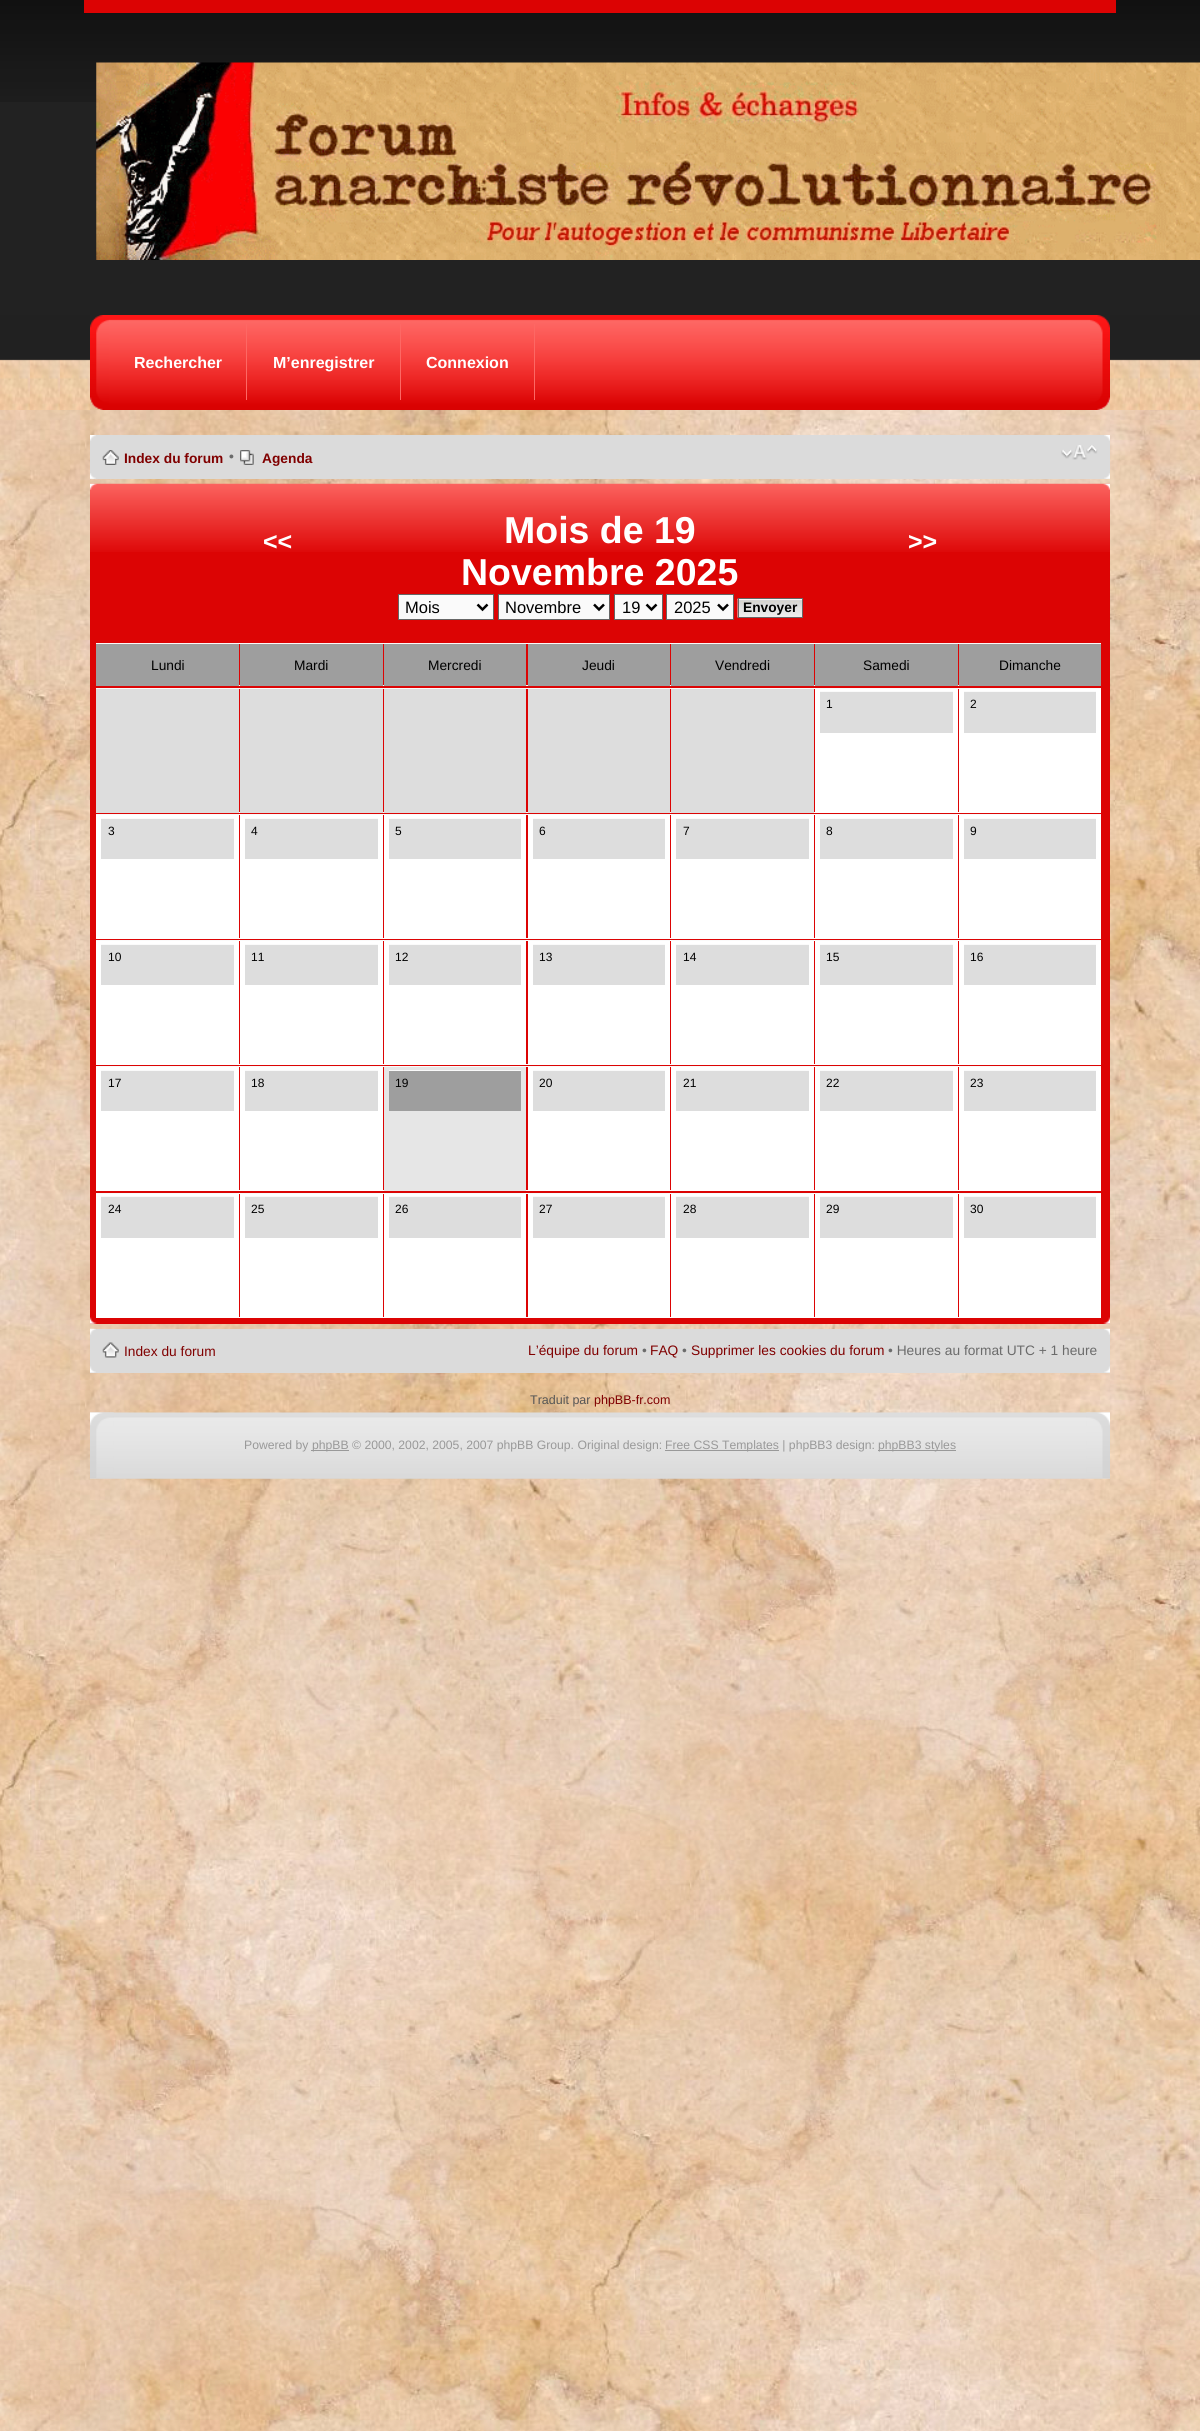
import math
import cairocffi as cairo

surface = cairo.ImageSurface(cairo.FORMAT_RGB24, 1200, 2431)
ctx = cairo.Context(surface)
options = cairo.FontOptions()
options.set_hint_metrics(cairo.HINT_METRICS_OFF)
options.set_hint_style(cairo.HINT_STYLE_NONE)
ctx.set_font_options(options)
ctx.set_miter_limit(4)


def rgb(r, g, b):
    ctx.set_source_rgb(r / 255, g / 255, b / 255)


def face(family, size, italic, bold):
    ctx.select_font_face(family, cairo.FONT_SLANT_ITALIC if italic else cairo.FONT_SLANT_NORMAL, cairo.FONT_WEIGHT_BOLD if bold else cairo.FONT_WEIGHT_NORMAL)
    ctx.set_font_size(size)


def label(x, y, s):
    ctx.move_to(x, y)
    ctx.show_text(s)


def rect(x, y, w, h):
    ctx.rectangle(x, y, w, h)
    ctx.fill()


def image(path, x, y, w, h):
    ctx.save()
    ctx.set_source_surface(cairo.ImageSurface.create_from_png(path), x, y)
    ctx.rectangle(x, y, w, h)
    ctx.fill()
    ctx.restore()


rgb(255, 255, 255)
ctx.paint()
image('image0.png', 0, 1493, 1200, 938)
image('image1.png', 0, 410, 1200, 1083)
rgb(34, 34, 34)
rect(0, 102, 1200, 213)
image('image2.png', 0, 0, 1200, 102)
rgb(220, 3, 3)
rect(84, 0, 1032, 13)
image('image3.png', 96, 62, 1104, 198)
image('image4.png', 0, 315, 1200, 95)
image('image5.png', 109, 315, 981, 95)
image('image6.png', 1090, 315, 20, 95)
image('image7.png', 90, 315, 19, 95)
rgb(253, 104, 100)
rect(246, 324, 1, 76)
face('Liberation Sans', 16, 0, 1)
rgb(255, 255, 255)
label(134, 368, 'Rechercher')
rgb(253, 104, 100)
rect(400, 324, 1, 76)
rgb(255, 255, 255)
label(273, 368, 'M’enregistrer')
rgb(253, 104, 100)
rect(534, 324, 1, 76)
rgb(255, 255, 255)
label(426, 368, 'Connexion')
rgb(219, 219, 219)
rect(90, 435, 1020, 44)
image('image8.png', 90, 435, 6, 6)
image('image9.png', 1104, 435, 6, 6)
image('image10.png', 102, 450, 17, 15)
face('Liberation Sans', 13.75, 0, 1)
rgb(128, 0, 0)
label(124, 463, 'Index du forum')
rgb(107, 107, 107)
label(229, 461, '•')
image('image11.png', 240, 450, 14, 15)
rgb(128, 0, 0)
label(262, 463, 'Agenda')
image('image12.png', 1061, 445, 37, 15)
image('image13.png', 90, 473, 6, 6)
image('image14.png', 1104, 473, 6, 6)
rgb(220, 4, 4)
rect(90, 552, 1020, 772)
image('image15.png', 90, 483, 1020, 69)
image('image16.png', 90, 483, 7, 7)
image('image17.png', 1103, 483, 7, 7)
face('Liberation Sans', 25, 0, 1)
rgb(255, 255, 255)
label(263, 550, '<<')
face('Liberation Sans', 37.5, 0, 1)
label(504, 543, 'Mois de 19')
label(461, 585, 'Novembre 2025')
face('Liberation Sans', 25, 0, 1)
label(908, 550, '>>')
rgb(250, 250, 250)
ctx.rectangle(398.5, 594.5, 95, 25)
ctx.fill_preserve()
rgb(102, 102, 102)
ctx.set_line_width(1)
ctx.stroke()
ctx.new_path()
ctx.move_to(477.5, 604.5)
ctx.line_to(482.5, 609.5)
ctx.line_to(487.5, 604.5)
rgb(0, 0, 0)
ctx.set_line_width(2.5)
ctx.stroke()
face('Liberation Sans', 16.5, 0, 0)
label(405, 613, 'Mois')
rgb(250, 250, 250)
ctx.rectangle(498.5, 594.5, 111, 25)
ctx.fill_preserve()
rgb(102, 102, 102)
ctx.set_line_width(1)
ctx.stroke()
ctx.new_path()
ctx.move_to(594, 604.5)
ctx.line_to(599, 609.5)
ctx.line_to(604, 604.5)
rgb(0, 0, 0)
ctx.set_line_width(2.5)
ctx.stroke()
label(505, 613, 'Novembre')
rgb(250, 250, 250)
ctx.rectangle(614.5, 594.5, 48, 25)
ctx.fill_preserve()
rgb(102, 102, 102)
ctx.set_line_width(1)
ctx.stroke()
ctx.new_path()
ctx.move_to(646.5, 604.5)
ctx.line_to(651.5, 609.5)
ctx.line_to(656.5, 604.5)
rgb(0, 0, 0)
ctx.set_line_width(2.5)
ctx.stroke()
label(622, 613, '19')
rgb(250, 250, 250)
ctx.rectangle(666.5, 594.5, 67, 25)
ctx.fill_preserve()
rgb(102, 102, 102)
ctx.set_line_width(1)
ctx.stroke()
ctx.new_path()
ctx.move_to(718, 604.5)
ctx.line_to(723, 609.5)
ctx.line_to(728, 604.5)
rgb(0, 0, 0)
ctx.set_line_width(2.5)
ctx.stroke()
label(674, 613, '2025')
image('image18.png', 737, 598, 65, 20)
ctx.rectangle(738.5, 598.5, 64, 19)
rgb(102, 102, 102)
ctx.set_line_width(1)
ctx.stroke()
face('Liberation Sans', 13.75, 0, 1)
rgb(0, 0, 0)
label(743, 612, 'Envoyer')
ctx.rectangle(96.5, 643.5, 1004, 42)
rgb(255, 255, 255)
ctx.stroke()
rgb(158, 158, 158)
rect(96, 644, 143, 42)
rgb(250, 250, 250)
rect(96, 643, 143, 1)
face('Liberation Sans', 13.75, 0, 0)
rgb(0, 0, 0)
label(151, 670, 'Lundi')
rgb(158, 158, 158)
rect(240, 644, 143, 42)
rgb(250, 250, 250)
rect(240, 643, 143, 1)
rgb(0, 0, 0)
label(294, 670, 'Mardi')
rgb(158, 158, 158)
rect(384, 644, 142, 42)
rgb(250, 250, 250)
rect(384, 643, 142, 1)
rgb(0, 0, 0)
label(428, 670, 'Mercredi')
rgb(158, 158, 158)
rect(528, 644, 142, 42)
rgb(250, 250, 250)
rect(528, 643, 142, 1)
rgb(0, 0, 0)
label(582, 670, 'Jeudi')
rgb(158, 158, 158)
rect(671, 644, 143, 42)
rgb(250, 250, 250)
rect(671, 643, 143, 1)
rgb(0, 0, 0)
label(715, 670, 'Vendredi')
rgb(158, 158, 158)
rect(815, 644, 143, 42)
rgb(250, 250, 250)
rect(815, 643, 143, 1)
rgb(0, 0, 0)
label(863, 670, 'Samedi')
rgb(158, 158, 158)
rect(959, 644, 142, 42)
rgb(250, 250, 250)
rect(959, 643, 142, 1)
rgb(0, 0, 0)
label(999, 670, 'Dimanche')
ctx.rectangle(96.5, 688.5, 1004, 124)
rgb(255, 255, 255)
ctx.stroke()
rgb(221, 221, 221)
rect(96, 689, 143, 124)
rgb(250, 250, 250)
rect(96, 688, 143, 1)
rgb(221, 221, 221)
rect(240, 689, 143, 124)
rgb(250, 250, 250)
rect(240, 688, 143, 1)
rgb(221, 221, 221)
rect(384, 689, 142, 124)
rgb(250, 250, 250)
rect(384, 688, 142, 1)
rgb(221, 221, 221)
rect(528, 689, 142, 124)
rgb(250, 250, 250)
rect(528, 688, 142, 1)
rgb(221, 221, 221)
rect(671, 689, 143, 124)
rgb(250, 250, 250)
rect(671, 688, 143, 1)
rgb(255, 255, 255)
rect(815, 689, 143, 123)
rgb(250, 250, 250)
rect(815, 688, 143, 1)
rgb(221, 221, 221)
rect(820, 692, 133, 41)
rgb(250, 250, 250)
rect(820, 691, 133, 1)
face('Liberation Sans', 12, 0, 0)
rgb(0, 0, 0)
label(826, 708, '1')
rgb(255, 255, 255)
rect(959, 689, 141, 123)
rgb(250, 250, 250)
rect(959, 688, 142, 1)
rgb(221, 221, 221)
rect(964, 692, 132, 41)
rgb(250, 250, 250)
rect(964, 691, 132, 1)
rgb(0, 0, 0)
label(970, 708, '2')
ctx.rectangle(96.5, 814.5, 1004, 124)
rgb(255, 255, 255)
ctx.stroke()
rect(97, 815, 142, 123)
rgb(250, 250, 250)
rect(96, 814, 143, 1)
rgb(221, 221, 221)
rect(101, 819, 133, 40)
rgb(250, 250, 250)
rect(101, 818, 133, 1)
rgb(0, 0, 0)
label(108, 835, '3')
rgb(255, 255, 255)
rect(240, 815, 143, 123)
rgb(250, 250, 250)
rect(240, 814, 143, 1)
rgb(221, 221, 221)
rect(245, 819, 133, 40)
rgb(250, 250, 250)
rect(245, 818, 133, 1)
rgb(0, 0, 0)
label(251, 835, '4')
rgb(255, 255, 255)
rect(384, 815, 142, 123)
rgb(250, 250, 250)
rect(384, 814, 142, 1)
rgb(221, 221, 221)
rect(389, 819, 132, 40)
rgb(250, 250, 250)
rect(389, 818, 132, 1)
rgb(0, 0, 0)
label(395, 835, '5')
rgb(255, 255, 255)
rect(528, 815, 142, 123)
rgb(250, 250, 250)
rect(528, 814, 142, 1)
rgb(221, 221, 221)
rect(533, 819, 132, 40)
rgb(250, 250, 250)
rect(533, 818, 132, 1)
rgb(0, 0, 0)
label(539, 835, '6')
rgb(255, 255, 255)
rect(671, 815, 143, 123)
rgb(250, 250, 250)
rect(671, 814, 143, 1)
rgb(221, 221, 221)
rect(676, 819, 133, 40)
rgb(250, 250, 250)
rect(676, 818, 133, 1)
rgb(0, 0, 0)
label(683, 835, '7')
rgb(255, 255, 255)
rect(815, 815, 143, 123)
rgb(250, 250, 250)
rect(815, 814, 143, 1)
rgb(221, 221, 221)
rect(820, 819, 133, 40)
rgb(250, 250, 250)
rect(820, 818, 133, 1)
rgb(0, 0, 0)
label(826, 835, '8')
rgb(255, 255, 255)
rect(959, 815, 141, 123)
rgb(250, 250, 250)
rect(959, 814, 142, 1)
rgb(221, 221, 221)
rect(964, 819, 132, 40)
rgb(250, 250, 250)
rect(964, 818, 132, 1)
rgb(0, 0, 0)
label(970, 835, '9')
ctx.rectangle(96.5, 940.5, 1004, 124)
rgb(255, 255, 255)
ctx.stroke()
rect(97, 941, 142, 123)
rgb(250, 250, 250)
rect(96, 940, 143, 1)
rgb(221, 221, 221)
rect(101, 945, 133, 40)
rgb(250, 250, 250)
rect(101, 944, 133, 1)
rgb(0, 0, 0)
label(108, 961, '10')
rgb(255, 255, 255)
rect(240, 941, 143, 123)
rgb(250, 250, 250)
rect(240, 940, 143, 1)
rgb(221, 221, 221)
rect(245, 945, 133, 40)
rgb(250, 250, 250)
rect(245, 944, 133, 1)
rgb(0, 0, 0)
label(251, 961, '11')
rgb(255, 255, 255)
rect(384, 941, 142, 123)
rgb(250, 250, 250)
rect(384, 940, 142, 1)
rgb(221, 221, 221)
rect(389, 945, 132, 40)
rgb(250, 250, 250)
rect(389, 944, 132, 1)
rgb(0, 0, 0)
label(395, 961, '12')
rgb(255, 255, 255)
rect(528, 941, 142, 123)
rgb(250, 250, 250)
rect(528, 940, 142, 1)
rgb(221, 221, 221)
rect(533, 945, 132, 40)
rgb(250, 250, 250)
rect(533, 944, 132, 1)
rgb(0, 0, 0)
label(539, 961, '13')
rgb(255, 255, 255)
rect(671, 941, 143, 123)
rgb(250, 250, 250)
rect(671, 940, 143, 1)
rgb(221, 221, 221)
rect(676, 945, 133, 40)
rgb(250, 250, 250)
rect(676, 944, 133, 1)
rgb(0, 0, 0)
label(683, 961, '14')
rgb(255, 255, 255)
rect(815, 941, 143, 123)
rgb(250, 250, 250)
rect(815, 940, 143, 1)
rgb(221, 221, 221)
rect(820, 945, 133, 40)
rgb(250, 250, 250)
rect(820, 944, 133, 1)
rgb(0, 0, 0)
label(826, 961, '15')
rgb(255, 255, 255)
rect(959, 941, 141, 123)
rgb(250, 250, 250)
rect(959, 940, 142, 1)
rgb(221, 221, 221)
rect(964, 945, 132, 40)
rgb(250, 250, 250)
rect(964, 944, 132, 1)
rgb(0, 0, 0)
label(970, 961, '16')
ctx.rectangle(96.5, 1066.5, 1004, 124)
rgb(255, 255, 255)
ctx.stroke()
rect(97, 1067, 142, 123)
rgb(250, 250, 250)
rect(96, 1066, 143, 1)
rgb(221, 221, 221)
rect(101, 1071, 133, 40)
rgb(250, 250, 250)
rect(101, 1070, 133, 1)
rgb(0, 0, 0)
label(108, 1087, '17')
rgb(255, 255, 255)
rect(240, 1067, 143, 123)
rgb(250, 250, 250)
rect(240, 1066, 143, 1)
rgb(221, 221, 221)
rect(245, 1071, 133, 40)
rgb(250, 250, 250)
rect(245, 1070, 133, 1)
rgb(0, 0, 0)
label(251, 1087, '18')
rgb(230, 230, 230)
rect(384, 1067, 142, 124)
rgb(250, 250, 250)
rect(384, 1066, 142, 1)
rgb(158, 158, 158)
rect(389, 1071, 132, 40)
rgb(250, 250, 250)
rect(389, 1070, 132, 1)
rgb(0, 0, 0)
label(395, 1087, '19')
rgb(255, 255, 255)
rect(528, 1067, 142, 123)
rgb(250, 250, 250)
rect(528, 1066, 142, 1)
rgb(221, 221, 221)
rect(533, 1071, 132, 40)
rgb(250, 250, 250)
rect(533, 1070, 132, 1)
rgb(0, 0, 0)
label(539, 1087, '20')
rgb(255, 255, 255)
rect(671, 1067, 143, 123)
rgb(250, 250, 250)
rect(671, 1066, 143, 1)
rgb(221, 221, 221)
rect(676, 1071, 133, 40)
rgb(250, 250, 250)
rect(676, 1070, 133, 1)
rgb(0, 0, 0)
label(683, 1087, '21')
rgb(255, 255, 255)
rect(815, 1067, 143, 123)
rgb(250, 250, 250)
rect(815, 1066, 143, 1)
rgb(221, 221, 221)
rect(820, 1071, 133, 40)
rgb(250, 250, 250)
rect(820, 1070, 133, 1)
rgb(0, 0, 0)
label(826, 1087, '22')
rgb(255, 255, 255)
rect(959, 1067, 141, 123)
rgb(250, 250, 250)
rect(959, 1066, 142, 1)
rgb(221, 221, 221)
rect(964, 1071, 132, 40)
rgb(250, 250, 250)
rect(964, 1070, 132, 1)
rgb(0, 0, 0)
label(970, 1087, '23')
ctx.rectangle(96.5, 1193.5, 1004, 124)
rgb(255, 255, 255)
ctx.stroke()
rect(97, 1194, 142, 123)
rgb(250, 250, 250)
rect(96, 1193, 143, 1)
rgb(221, 221, 221)
rect(101, 1197, 133, 41)
rgb(250, 250, 250)
rect(101, 1196, 133, 1)
rgb(0, 0, 0)
label(108, 1213, '24')
rgb(255, 255, 255)
rect(240, 1194, 143, 123)
rgb(250, 250, 250)
rect(240, 1193, 143, 1)
rgb(221, 221, 221)
rect(245, 1197, 133, 41)
rgb(250, 250, 250)
rect(245, 1196, 133, 1)
rgb(0, 0, 0)
label(251, 1213, '25')
rgb(255, 255, 255)
rect(384, 1194, 142, 123)
rgb(250, 250, 250)
rect(384, 1193, 142, 1)
rgb(221, 221, 221)
rect(389, 1197, 132, 41)
rgb(250, 250, 250)
rect(389, 1196, 132, 1)
rgb(0, 0, 0)
label(395, 1213, '26')
rgb(255, 255, 255)
rect(528, 1194, 142, 123)
rgb(250, 250, 250)
rect(528, 1193, 142, 1)
rgb(221, 221, 221)
rect(533, 1197, 132, 41)
rgb(250, 250, 250)
rect(533, 1196, 132, 1)
rgb(0, 0, 0)
label(539, 1213, '27')
rgb(255, 255, 255)
rect(671, 1194, 143, 123)
rgb(250, 250, 250)
rect(671, 1193, 143, 1)
rgb(221, 221, 221)
rect(676, 1197, 133, 41)
rgb(250, 250, 250)
rect(676, 1196, 133, 1)
rgb(0, 0, 0)
label(683, 1213, '28')
rgb(255, 255, 255)
rect(815, 1194, 143, 123)
rgb(250, 250, 250)
rect(815, 1193, 143, 1)
rgb(221, 221, 221)
rect(820, 1197, 133, 41)
rgb(250, 250, 250)
rect(820, 1196, 133, 1)
rgb(0, 0, 0)
label(826, 1213, '29')
rgb(255, 255, 255)
rect(959, 1194, 141, 123)
rgb(250, 250, 250)
rect(959, 1193, 142, 1)
rgb(221, 221, 221)
rect(964, 1197, 132, 41)
rgb(250, 250, 250)
rect(964, 1196, 132, 1)
rgb(0, 0, 0)
label(970, 1213, '30')
image('image19.png', 90, 1317, 7, 7)
image('image20.png', 1103, 1317, 7, 7)
rgb(219, 219, 219)
rect(90, 1329, 1020, 44)
image('image21.png', 90, 1328, 6, 7)
image('image22.png', 1104, 1328, 6, 7)
image('image23.png', 102, 1342, 17, 16)
face('Liberation Sans', 13.75, 0, 0)
rgb(128, 0, 0)
label(124, 1356, 'Index du forum')
label(528, 1355, 'L’équipe du forum')
rgb(107, 107, 107)
label(642, 1355, '•')
rgb(128, 0, 0)
label(650, 1355, 'FAQ')
rgb(107, 107, 107)
label(682, 1355, '•')
rgb(128, 0, 0)
label(691, 1355, 'Supprimer les cookies du forum')
rgb(107, 107, 107)
label(888, 1355, '• Heures au format UTC + 1 heure')
image('image24.png', 90, 1366, 6, 7)
image('image25.png', 1104, 1366, 6, 7)
face('Liberation Sans', 12.5, 0, 0)
rgb(85, 85, 85)
label(530, 1404, 'Traduit par')
rgb(128, 0, 0)
label(594, 1404, 'phpBB-fr.com')
image('image26.png', 90, 1412, 1020, 67)
image('image27.png', 90, 1412, 24, 66)
image('image28.png', 1086, 1412, 24, 66)
face('Liberation Sans', 12.2, 0, 0)
rgb(153, 153, 153)
label(244, 1449, 'Powered by')
rect(311, 1450, 38, 1)
label(312, 1449, 'phpBB © 2000, 2002, 2005, 2007 phpBB Group. Original design:')
rect(665, 1450, 114, 1)
label(665, 1449, 'Free CSS Templates | phpBB3 design:')
rect(878, 1450, 78, 1)
label(878, 1449, 'phpBB3 styles')
surface.write_to_png('render.png')
